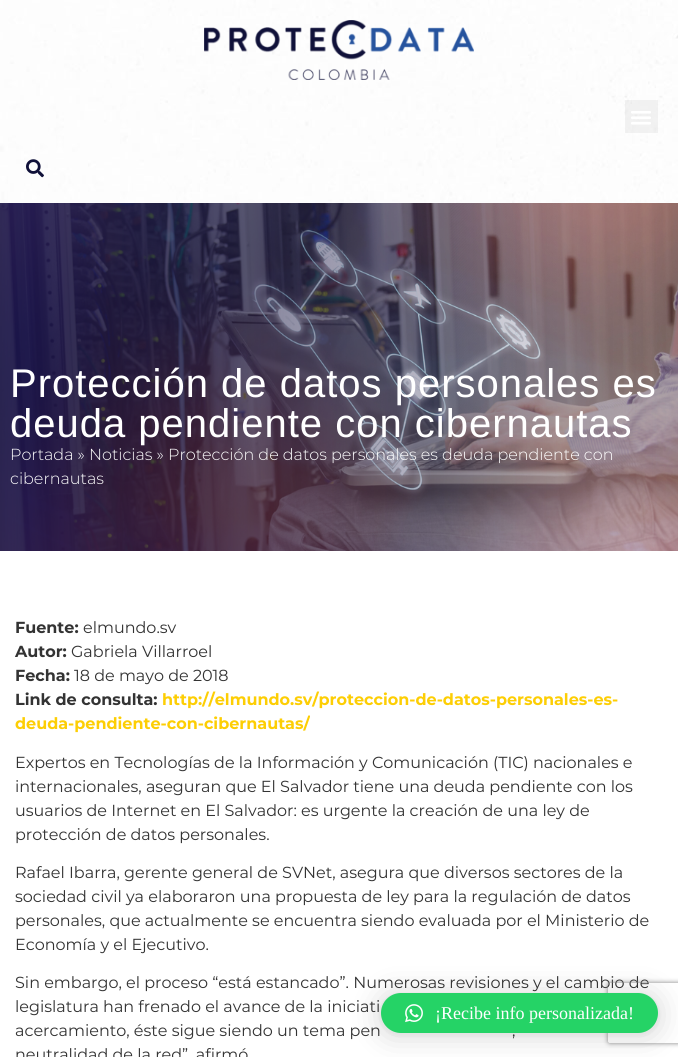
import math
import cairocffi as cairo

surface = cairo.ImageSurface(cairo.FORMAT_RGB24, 678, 1057)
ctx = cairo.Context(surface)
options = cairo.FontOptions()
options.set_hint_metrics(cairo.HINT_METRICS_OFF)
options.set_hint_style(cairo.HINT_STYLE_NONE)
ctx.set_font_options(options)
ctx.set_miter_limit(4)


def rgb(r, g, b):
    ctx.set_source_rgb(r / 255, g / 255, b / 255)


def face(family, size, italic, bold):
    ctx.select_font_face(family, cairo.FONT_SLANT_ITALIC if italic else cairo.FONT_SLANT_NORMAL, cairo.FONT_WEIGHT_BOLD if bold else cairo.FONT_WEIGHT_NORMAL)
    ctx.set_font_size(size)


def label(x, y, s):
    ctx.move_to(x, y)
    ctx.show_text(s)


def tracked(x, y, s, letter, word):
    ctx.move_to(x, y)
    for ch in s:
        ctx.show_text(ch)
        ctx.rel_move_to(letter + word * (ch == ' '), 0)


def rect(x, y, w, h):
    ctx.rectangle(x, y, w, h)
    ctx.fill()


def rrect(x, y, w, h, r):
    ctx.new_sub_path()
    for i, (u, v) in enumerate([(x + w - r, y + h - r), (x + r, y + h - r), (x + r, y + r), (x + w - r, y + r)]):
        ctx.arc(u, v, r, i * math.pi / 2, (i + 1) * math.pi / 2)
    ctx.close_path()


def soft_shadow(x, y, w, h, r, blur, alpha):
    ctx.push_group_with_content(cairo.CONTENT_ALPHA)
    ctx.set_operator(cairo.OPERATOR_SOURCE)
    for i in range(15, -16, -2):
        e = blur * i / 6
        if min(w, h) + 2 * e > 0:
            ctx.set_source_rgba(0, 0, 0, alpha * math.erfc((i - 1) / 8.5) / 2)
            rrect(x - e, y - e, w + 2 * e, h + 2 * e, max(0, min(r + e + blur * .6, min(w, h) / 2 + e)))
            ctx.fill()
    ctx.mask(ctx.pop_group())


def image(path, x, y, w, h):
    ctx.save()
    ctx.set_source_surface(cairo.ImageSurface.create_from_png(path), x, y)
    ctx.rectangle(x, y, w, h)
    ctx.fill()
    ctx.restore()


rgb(255, 255, 255)
ctx.paint()
image('image0.png', 0, 0, 678, 203)
image('image1.png', 204, 20, 270, 60)
ctx.set_source_rgba(0, 0, 0, 0.05)
rect(625, 100, 33, 33)
image('image2.png', 631, 111, 20, 14)
image('image3.png', 26, 159, 18, 19)
image('image4.png', 0, 203, 678, 348)
face('Liberation Sans', 40, 0, 0)
rgb(255, 255, 255)
tracked(10, 397, 'Protección de datos personales es', 1, 0)
tracked(10, 437, 'deuda pendiente con cibernautas', 1, 0)
face('Montserrat Light', 16, 0, 0)
label(10, 460, 'Portada » Noticias » Protección de datos personales es deuda pendiente con')
label(10, 484, 'cibernautas')
face('Montserrat', 16, 0, 1)
rgb(51, 51, 51)
label(15, 633, 'Fuente:')
face('Montserrat', 16, 0, 0)
label(83, 633, 'elmundo.sv')
face('Montserrat', 16, 0, 1)
label(15, 657, 'Autor:')
face('Montserrat', 16, 0, 0)
label(71, 657, 'Gabriela Villarroel')
face('Montserrat', 16, 0, 1)
label(15, 681, 'Fecha:')
face('Montserrat', 16, 0, 0)
label(74, 681, '18 de mayo de 2018')
face('Montserrat', 16, 0, 1)
label(15, 705, 'Link de consulta:')
rgb(253, 206, 4)
label(162, 705, 'http://elmundo.sv/proteccion-de-datos-personales-es-')
label(15, 729, 'deuda-pendiente-con-cibernautas/')
face('Montserrat', 16, 0, 0)
rgb(51, 51, 51)
label(15, 768, 'Expertos en Tecnologías de la Información y Comunicación (TIC) nacionales e')
label(15, 792, 'internacionales, aseguran que El Salvador tiene una deuda pendiente con los')
label(15, 816, 'usuarios de Internet en El Salvador: es urgente la creación de una ley de')
label(15, 840, 'protección de datos personales.')
label(15, 878, 'Rafael Ibarra, gerente general de SVNet, asegura que diversos sectores de la')
label(15, 902, 'sociedad civil ya elaboraron una propuesta de ley para la regulación de datos')
label(15, 926, 'personales, que actualmente se encuentra siendo evaluada por el Ministerio de')
label(15, 950, 'Economía y el Ejecutivo.')
label(15, 988, 'Sin embargo, el proceso “está estancado”. Numerosas revisiones y el cambio de')
label(15, 1012, 'legislatura han frenado el avance de la iniciati')
label(15, 1036, 'acercamiento, éste sigue siendo un tema pen')
label(512, 1036, ',')
label(15, 1060, 'neutralidad de la red”, afirmó')
rgb(0, 0, 0)
soft_shadow(381, 995, 277, 40, 20, 16, 0.16)
soft_shadow(381, 994, 277, 40, 20, 3, 0.06)
ctx.save()
ctx.set_fill_rule(cairo.FILL_RULE_EVEN_ODD)
ctx.new_path()
ctx.move_to(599, 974)
ctx.line_to(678, 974)
ctx.line_to(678, 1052)
ctx.line_to(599, 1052)
ctx.close_path()
ctx.move_to(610, 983)
ctx.line_to(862, 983)
ctx.curve_to(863, 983, 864, 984, 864, 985)
ctx.line_to(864, 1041)
ctx.curve_to(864, 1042, 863, 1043, 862, 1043)
ctx.line_to(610, 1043)
ctx.curve_to(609, 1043, 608, 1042, 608, 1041)
ctx.line_to(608, 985)
ctx.curve_to(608, 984, 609, 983, 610, 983)
ctx.close_path()
ctx.clip()
rgb(128, 128, 128)
soft_shadow(608, 983, 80, 60, 2, 2.5, 1)
ctx.restore()
rgb(37, 211, 102)
rrect(381, 993, 277, 40, 20)
ctx.fill()
image('image5.png', 405, 1004, 18, 19)
face('Liberation Serif', 18, 0, 0)
rgb(255, 255, 255)
label(435, 1019, '¡Recibe info personalizada!')
surface.write_to_png('render.png')
